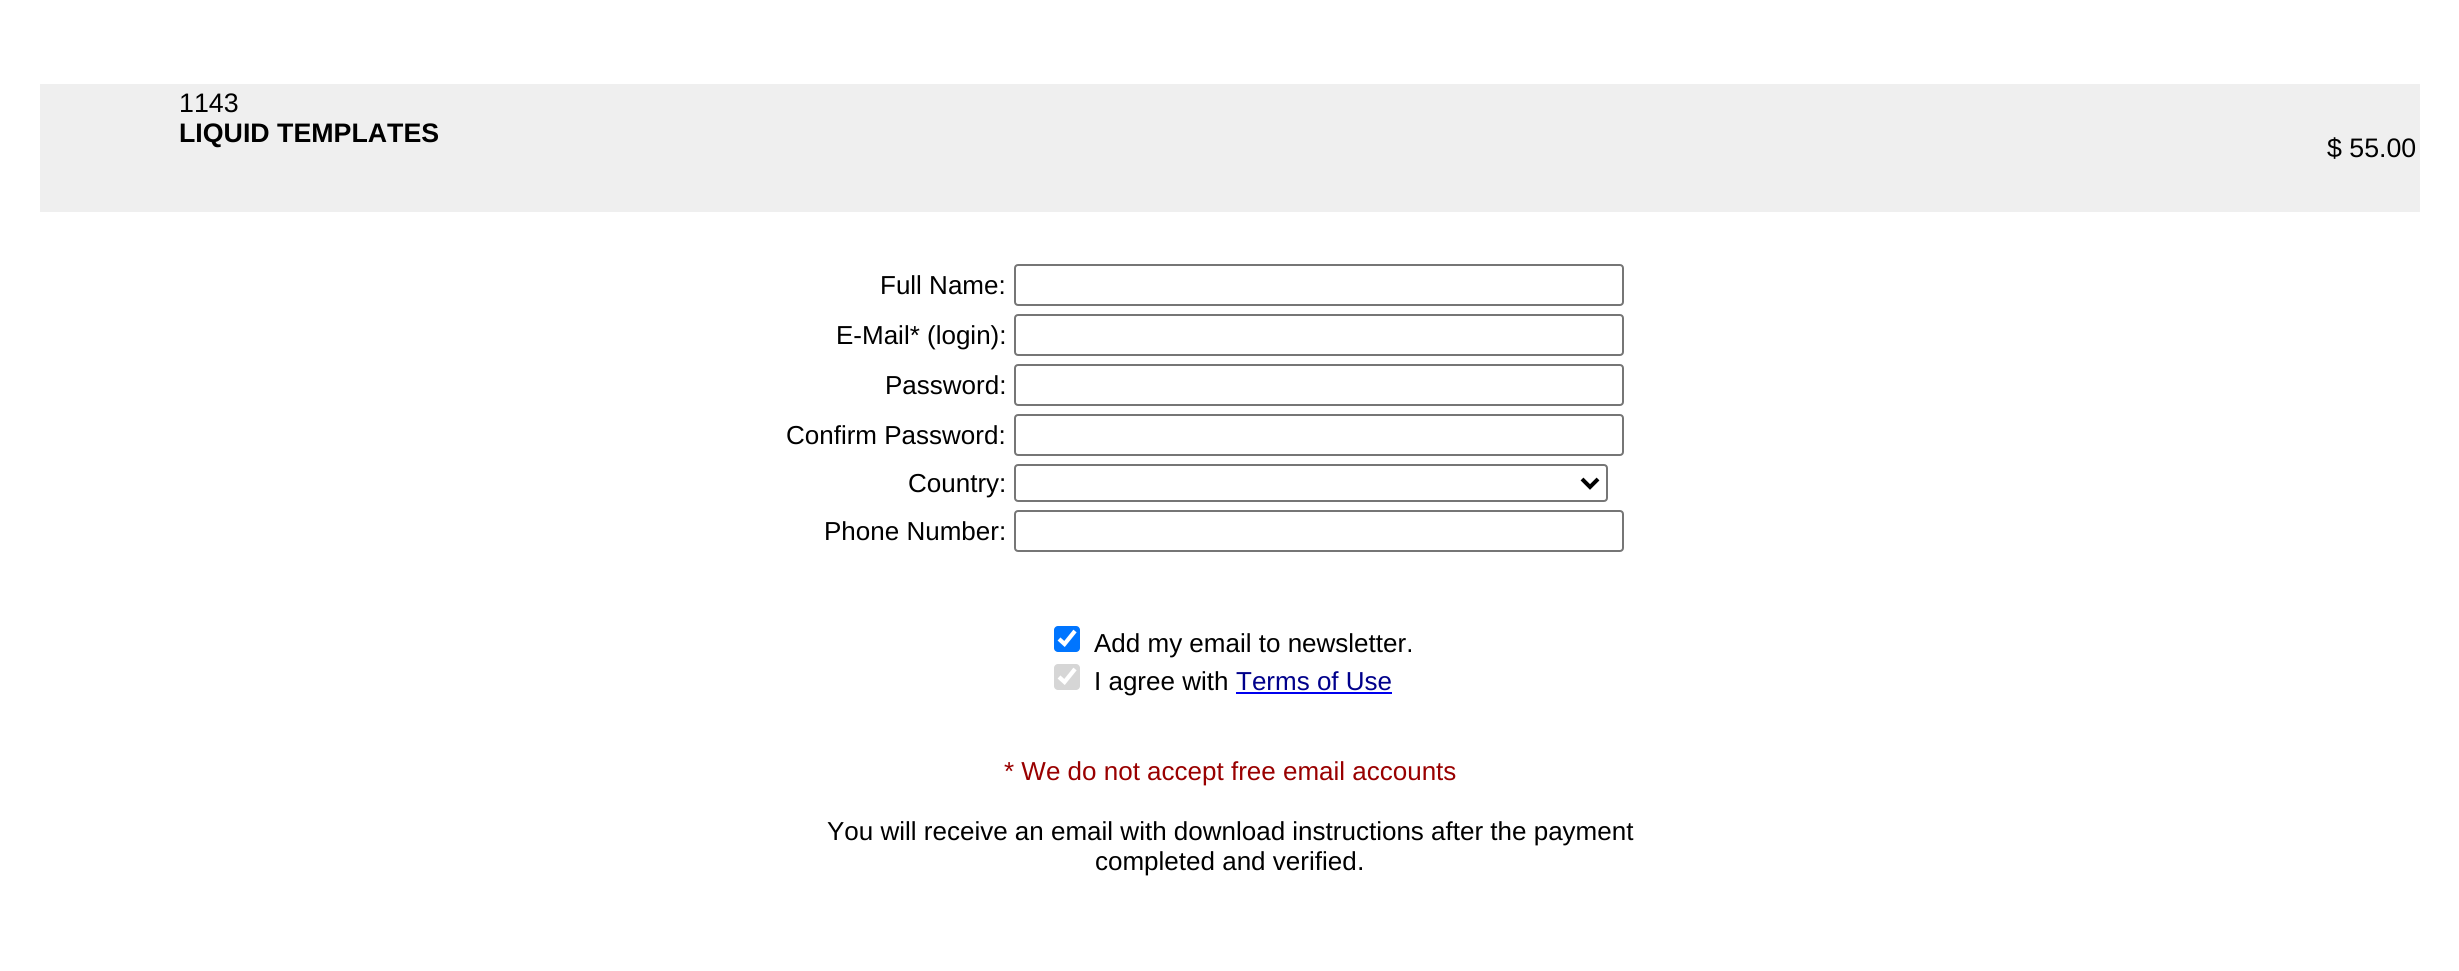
import math
import cairocffi as cairo

surface = cairo.ImageSurface(cairo.FORMAT_RGB24, 2459, 971)
ctx = cairo.Context(surface)
options = cairo.FontOptions()
options.set_hint_metrics(cairo.HINT_METRICS_OFF)
options.set_hint_style(cairo.HINT_STYLE_NONE)
ctx.set_font_options(options)
ctx.set_miter_limit(4)


def rgb(r, g, b):
    ctx.set_source_rgb(r / 255, g / 255, b / 255)


def face(family, size, italic, bold):
    ctx.select_font_face(family, cairo.FONT_SLANT_ITALIC if italic else cairo.FONT_SLANT_NORMAL, cairo.FONT_WEIGHT_BOLD if bold else cairo.FONT_WEIGHT_NORMAL)
    ctx.set_font_size(size)


def label(x, y, s):
    ctx.move_to(x, y)
    ctx.show_text(s)


def rect(x, y, w, h):
    ctx.rectangle(x, y, w, h)
    ctx.fill()


def rrect(x, y, w, h, r):
    ctx.new_sub_path()
    for i, (u, v) in enumerate([(x + w - r, y + h - r), (x + r, y + h - r), (x + r, y + r), (x + w - r, y + r)]):
        ctx.arc(u, v, r, i * math.pi / 2, (i + 1) * math.pi / 2)
    ctx.close_path()


rgb(255, 255, 255)
ctx.paint()
rgb(239, 239, 239)
rect(40, 84, 2380, 128)
face('Liberation Sans', 26.75, 0, 0)
rgb(0, 0, 0)
label(179, 112, '1143')
face('Liberation Sans', 26.75, 0, 1)
label(179, 142, 'LIQUID TEMPLATES')
face('Liberation Sans', 26.75, 0, 0)
label(2327, 157, '$ 55.00')
face('Liberation Sans', 26, 0, 0)
label(880, 294, 'Full Name:')
rrect(1015, 265, 608, 40, 3)
rgb(118, 118, 118)
ctx.stroke()
rgb(0, 0, 0)
label(836, 344, 'E-Mail* (login):')
rrect(1015, 315, 608, 40, 3)
rgb(118, 118, 118)
ctx.stroke()
rgb(0, 0, 0)
label(885, 394, 'Password:')
rrect(1015, 365, 608, 40, 3)
rgb(118, 118, 118)
ctx.stroke()
rgb(0, 0, 0)
label(786, 444, 'Confirm Password:')
rrect(1015, 415, 608, 40, 3)
rgb(118, 118, 118)
ctx.stroke()
rgb(0, 0, 0)
label(908, 492, 'Country:')
rrect(1015, 465, 592, 36, 3)
rgb(118, 118, 118)
ctx.stroke()
ctx.new_path()
ctx.move_to(1582, 479)
ctx.line_to(1590, 487)
ctx.line_to(1598, 479)
rgb(0, 0, 0)
ctx.set_line_width(4)
ctx.stroke()
label(824, 540, 'Phone Number:')
rrect(1015, 511, 608, 40, 3)
rgb(118, 118, 118)
ctx.set_line_width(2)
ctx.stroke()
rgb(0, 117, 255)
rrect(1054, 626, 26, 26, 4)
ctx.fill()
ctx.new_path()
ctx.move_to(1059, 639)
ctx.line_to(1064.5, 644)
ctx.line_to(1075, 631)
rgb(255, 255, 255)
ctx.set_line_width(4.2)
ctx.stroke()
rgb(0, 0, 0)
label(1094, 652, 'Add my email to newsletter.')
rgb(214, 214, 214)
rrect(1054, 664, 26, 26, 4)
ctx.fill()
ctx.new_path()
ctx.move_to(1059, 677)
ctx.line_to(1064.5, 682)
ctx.line_to(1075, 669)
rgb(255, 255, 255)
ctx.stroke()
rgb(0, 0, 0)
label(1094, 690, 'I agree with')
rgb(0, 0, 139)
label(1236, 690, 'Terms of Use')
rgb(0, 0, 238)
rect(1236, 692, 156, 2)
rgb(153, 0, 0)
label(1004, 780, '* We do not accept free email accounts')
rgb(0, 0, 0)
label(827, 840, 'You will receive an email with download instructions after the payment')
label(1095, 870, 'completed and verified')
face('Liberation Sans', 26.75, 0, 0)
label(1357, 870, '.')
surface.write_to_png('render.png')
